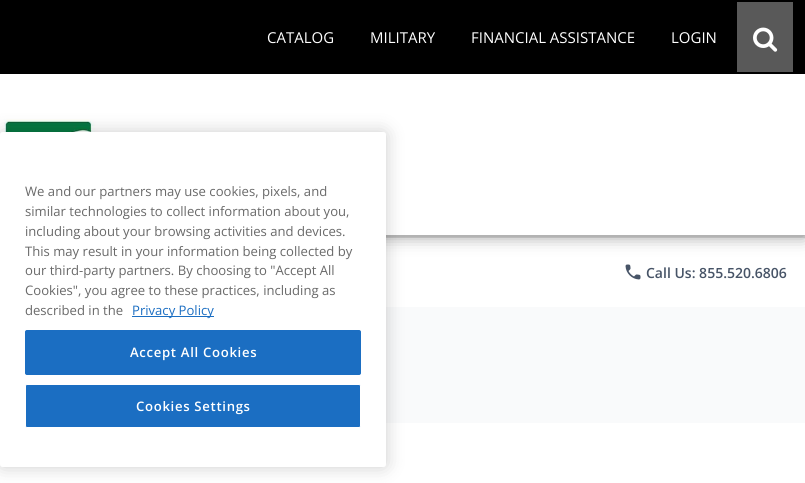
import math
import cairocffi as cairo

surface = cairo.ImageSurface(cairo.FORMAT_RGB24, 805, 483)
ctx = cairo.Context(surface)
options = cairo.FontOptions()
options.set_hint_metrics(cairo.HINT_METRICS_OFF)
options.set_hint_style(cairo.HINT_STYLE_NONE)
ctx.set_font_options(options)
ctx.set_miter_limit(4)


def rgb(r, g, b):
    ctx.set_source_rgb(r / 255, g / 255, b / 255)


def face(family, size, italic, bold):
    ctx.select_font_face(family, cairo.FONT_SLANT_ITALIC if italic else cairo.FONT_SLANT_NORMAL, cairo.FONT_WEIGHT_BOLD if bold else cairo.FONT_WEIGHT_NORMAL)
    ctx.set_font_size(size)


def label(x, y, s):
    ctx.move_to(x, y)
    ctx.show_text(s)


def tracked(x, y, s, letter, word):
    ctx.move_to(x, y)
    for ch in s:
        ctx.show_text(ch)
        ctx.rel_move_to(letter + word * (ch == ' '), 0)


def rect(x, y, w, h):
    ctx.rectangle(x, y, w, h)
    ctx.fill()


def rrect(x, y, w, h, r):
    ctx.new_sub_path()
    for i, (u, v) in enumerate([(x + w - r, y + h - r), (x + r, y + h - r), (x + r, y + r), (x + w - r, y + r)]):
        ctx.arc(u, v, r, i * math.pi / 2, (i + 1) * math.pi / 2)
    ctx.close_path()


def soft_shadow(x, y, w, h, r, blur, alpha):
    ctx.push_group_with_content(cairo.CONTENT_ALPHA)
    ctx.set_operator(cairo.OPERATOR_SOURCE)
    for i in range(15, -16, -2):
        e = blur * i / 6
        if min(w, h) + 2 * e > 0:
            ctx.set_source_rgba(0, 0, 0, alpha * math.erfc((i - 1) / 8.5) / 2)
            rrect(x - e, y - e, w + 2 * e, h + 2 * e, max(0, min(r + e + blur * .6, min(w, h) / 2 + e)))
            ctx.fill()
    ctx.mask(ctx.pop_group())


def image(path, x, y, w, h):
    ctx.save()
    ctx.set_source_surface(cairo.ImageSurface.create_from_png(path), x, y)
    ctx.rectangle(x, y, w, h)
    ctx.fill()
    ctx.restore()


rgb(255, 255, 255)
ctx.paint()
rgb(226, 226, 226)
rect(386, 235, 419, 3)
rgb(0, 0, 0)
rect(0, 0, 805, 74)
rgb(0, 0, 0)
soft_shadow(0, 75, 805, 161, 0, 8.5, 0.42)
rgb(255, 255, 255)
rect(0, 74, 805, 161)
image('image1.png', 4, 119, 231, 13)
rgb(249, 250, 251)
rect(386, 307, 419, 116)
rgb(0, 0, 0)
soft_shadow(0, 132, 386, 335, 2.5, 9, 0.2)
rgb(255, 255, 255)
rrect(0, 132, 386, 335, 2.5)
ctx.fill()
face('Open Sans', 13.1, 0, 0)
rgb(105, 105, 105)
label(25, 196, 'We and our partners may use cookies, pixels, and')
label(25, 216, 'similar technologies to collect information about you,')
label(25, 236, 'including about your browsing activities and devices.')
label(25, 256, 'This may result in your information being collected by')
label(25, 275, 'our third-party partners. By choosing to "Accept All')
label(25, 295, 'Cookies", you agree to these practices, including as')
label(25, 315, 'described in the')
rgb(27, 110, 194)
rect(132, 316, 82, 1)
label(132, 315, 'Privacy Policy')
rrect(25.5, 330.5, 335, 44, 1.5)
ctx.fill_preserve()
ctx.set_line_width(1)
ctx.stroke()
face('Open Sans SemiBold', 13.1, 0, 0)
rgb(255, 255, 255)
tracked(130, 357, 'Accept All Cookies', 0.7, 0)
rgb(27, 110, 194)
rrect(25.5, 384.5, 335, 43, 1.5)
ctx.fill_preserve()
rgb(255, 255, 255)
ctx.stroke()
tracked(136, 411, 'Cookies Settings', 0.7, 0)
face('Open Sans', 15, 0, 0)
label(267, 43, 'CATALOG')
label(370, 43, 'MILITARY')
label(471, 43, 'FINANCIAL ASSISTANCE')
label(671, 43, 'LOGIN')
rgb(89, 89, 89)
rect(737, 2, 56, 70)
image('image0.png', 753, 27, 25, 25)
image('image2.png', 625, 264, 16, 16)
face('Open Sans SemiBold', 14, 0, 0)
rgb(71, 84, 103)
label(646, 278, 'Call Us: 855.520.6806')
surface.write_to_png('render.png')
